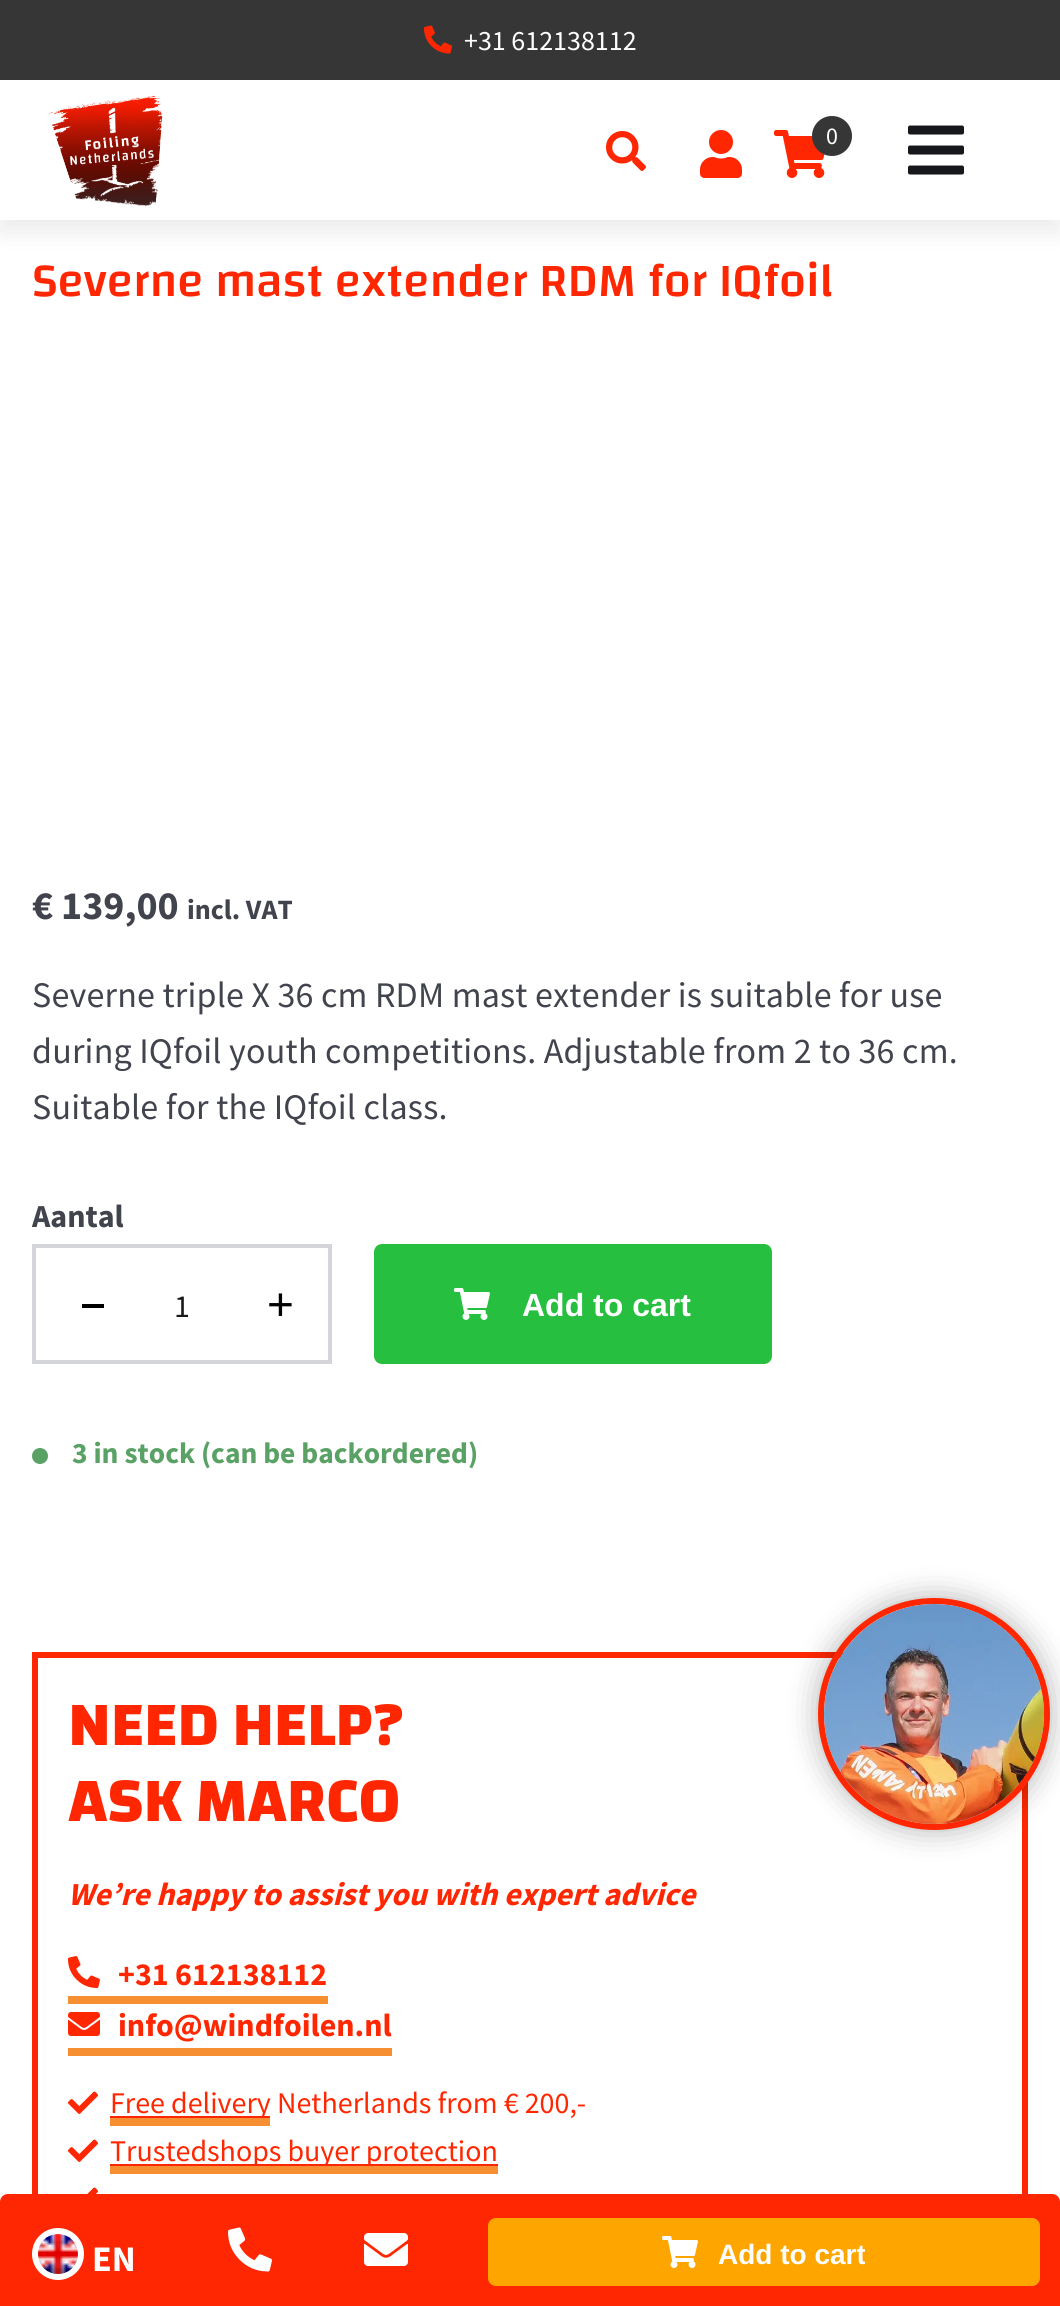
import math
import cairocffi as cairo

surface = cairo.ImageSurface(cairo.FORMAT_RGB24, 1060, 2306)
ctx = cairo.Context(surface)
options = cairo.FontOptions()
options.set_hint_metrics(cairo.HINT_METRICS_OFF)
options.set_hint_style(cairo.HINT_STYLE_NONE)
ctx.set_font_options(options)
ctx.set_miter_limit(4)


def rgb(r, g, b):
    ctx.set_source_rgb(r / 255, g / 255, b / 255)


def face(family, size, italic, bold):
    ctx.select_font_face(family, cairo.FONT_SLANT_ITALIC if italic else cairo.FONT_SLANT_NORMAL, cairo.FONT_WEIGHT_BOLD if bold else cairo.FONT_WEIGHT_NORMAL)
    ctx.set_font_size(size)


def label(x, y, s):
    ctx.move_to(x, y)
    ctx.show_text(s)


def tracked(x, y, s, letter, word):
    ctx.move_to(x, y)
    for ch in s:
        ctx.show_text(ch)
        ctx.rel_move_to(letter + word * (ch == ' '), 0)


def rect(x, y, w, h):
    ctx.rectangle(x, y, w, h)
    ctx.fill()


def rrect(x, y, w, h, r):
    ctx.new_sub_path()
    for i, (u, v) in enumerate([(x + w - r, y + h - r), (x + r, y + h - r), (x + r, y + r), (x + w - r, y + r)]):
        ctx.arc(u, v, r, i * math.pi / 2, (i + 1) * math.pi / 2)
    ctx.close_path()


def soft_shadow(x, y, w, h, r, blur, alpha):
    ctx.push_group_with_content(cairo.CONTENT_ALPHA)
    ctx.set_operator(cairo.OPERATOR_SOURCE)
    for i in range(15, -16, -2):
        e = blur * i / 6
        if min(w, h) + 2 * e > 0:
            ctx.set_source_rgba(0, 0, 0, alpha * math.erfc((i - 1) / 8.5) / 2)
            rrect(x - e, y - e, w + 2 * e, h + 2 * e, max(0, min(r + e + blur * .6, min(w, h) / 2 + e)))
            ctx.fill()
    ctx.mask(ctx.pop_group())


def image(path, x, y, w, h):
    ctx.save()
    ctx.set_source_surface(cairo.ImageSurface.create_from_png(path), x, y)
    ctx.rectangle(x, y, w, h)
    ctx.fill()
    ctx.restore()


rgb(255, 255, 255)
ctx.paint()
rgb(0, 0, 0)
soft_shadow(0, 92, 1060, 140, 0, 12, 0.08)
rgb(54, 54, 54)
rect(0, 0, 1060, 80)
image('image0.png', 424, 25, 28, 29)
face('Source Sans Pro', 28, 0, 0)
rgb(255, 255, 255)
label(464, 50, '+31 612138112')
rect(0, 80, 1060, 140)
image('image1.png', 49, 95, 114, 112)
image('image2.png', 606, 131, 40, 40)
image('image3.png', 700, 130, 42, 48)
image('image4.png', 774, 130, 51, 48)
rgb(54, 54, 54)
ctx.arc(832, 136, 20, 0, 2 * math.pi)
ctx.fill()
face('Source Sans Pro', 24, 0, 0)
rgb(255, 255, 255)
label(826, 144, '0')
image('image5.png', 908, 125, 56, 50)
ctx.rectangle(35, 1655, 990, 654)
rgb(255, 39, 2)
ctx.set_line_width(6)
ctx.stroke()
ctx.new_path()
ctx.move_to(8, 2194)
ctx.line_to(1052, 2194)
ctx.curve_to(1056.5, 2194, 1060, 2197.5, 1060, 2202)
ctx.line_to(1060, 2306)
ctx.line_to(0, 2306)
ctx.line_to(0, 2202)
ctx.curve_to(0, 2197.5, 3.5, 2194, 8, 2194)
ctx.close_path()
ctx.fill()
rgb(255, 255, 255)
ctx.arc(58, 2254, 24, 0, 2 * math.pi)
ctx.fill_preserve()
ctx.set_line_width(4)
ctx.stroke()
image('image6.png', 38, 2234, 40, 40)
face('Source Sans Pro', 36, 0, 1)
label(92, 2271, 'EN')
image('image7.png', 228, 2227, 44, 45)
image('image8.png', 364, 2233, 44, 33)
rgb(255, 165, 0)
rrect(488, 2218, 552, 68, 8)
ctx.fill()
image('image9.png', 662, 2236, 36, 32)
face('Liberation Sans', 28, 0, 1)
rgb(255, 255, 255)
label(718, 2264, 'Add to cart')
face('Changa Medium', 48, 0, 0)
rgb(255, 39, 2)
label(32, 296, 'Severne mast extender RDM for IQfoil')
face('Source Sans Pro', 40, 0, 1)
rgb(65, 67, 77)
label(32, 919, '€ 139,00')
face('Source Sans Pro', 28, 0, 1)
label(187, 919, 'incl. VAT')
face('Source Sans Pro', 36, 0, 0)
tracked(32, 1007, 'Severne triple X 36 cm RDM mast extender is suitable for use', 0.18, 0)
tracked(32, 1063, 'during IQfoil youth competitions. Adjustable from 2 to 36 cm.', 0.18, 0)
tracked(32, 1119, 'Suitable for the IQfoil class.', 0.18, 0)
face('Source Sans Pro', 32, 0, 1)
label(32, 1227, 'Aantal')
ctx.rectangle(34, 1246, 296, 116)
rgb(212, 213, 218)
ctx.stroke()
rgb(0, 0, 0)
rect(82, 1304, 22, 4)
face('Source Sans Pro', 32, 0, 0)
rgb(26, 26, 26)
label(174, 1317, '1')
face('Liberation Sans', 46, 0, 0)
rgb(0, 0, 0)
label(267, 1320, '+')
rgb(38, 191, 64)
rrect(374, 1244, 398, 120, 8)
ctx.fill()
image('image10.png', 454, 1288, 36, 32)
face('Liberation Sans', 32, 0, 1)
rgb(255, 255, 255)
label(522, 1316, 'Add to cart')
rgb(89, 161, 101)
ctx.new_path()
ctx.arc(40, 1456, 8, 0, 2 * math.pi)
ctx.fill()
face('Source Sans Pro', 29.5, 0, 1)
label(72, 1463, '3 in stock (can be backordered)')
face('Changa', 64, 0, 1)
rgb(255, 39, 2)
label(68, 1745, 'NEED HELP?')
label(68, 1821, 'ASK MARCO')
rgb(0, 0, 0)
soft_shadow(818, 1598, 232, 232, 116, 15, 0.3)
ctx.arc(934, 1714, 113, 0, 2 * math.pi)
rgb(255, 39, 2)
ctx.set_line_width(6)
ctx.stroke()
image('image11.png', 824, 1604, 220, 220)
face('Source Sans Pro', 32, 1, 1)
label(68, 1905, 'We’re happy to assist you with expert advice')
image('image12.png', 68, 1956, 32, 32)
face('Source Sans Pro', 32, 0, 1)
label(118, 1985, '+31 612138112')
rgb(246, 143, 49)
rect(68, 1996, 260, 8)
image('image13.png', 68, 2012, 32, 24)
rgb(255, 39, 2)
label(118, 2036, 'info@windfoilen.nl')
rgb(246, 143, 49)
rect(68, 2048, 324, 8)
image('image14.png', 68, 2091, 30, 23)
rgb(255, 39, 2)
rect(110, 2116, 160, 2)
face('Source Sans Pro', 30, 0, 0)
label(110, 2113, 'Free delivery')
rgb(246, 143, 49)
rect(110, 2118, 160, 8)
rgb(255, 39, 2)
label(277, 2113, 'Netherlands from € 200,-')
image('image14.png', 68, 2139, 30, 23)
rect(110, 2164, 388, 2)
label(110, 2161, 'Trustedshops buyer protection')
rgb(246, 143, 49)
rect(110, 2166, 388, 8)
image('image15.png', 87, 2187, 11, 7)
surface.write_to_png('render.png')
